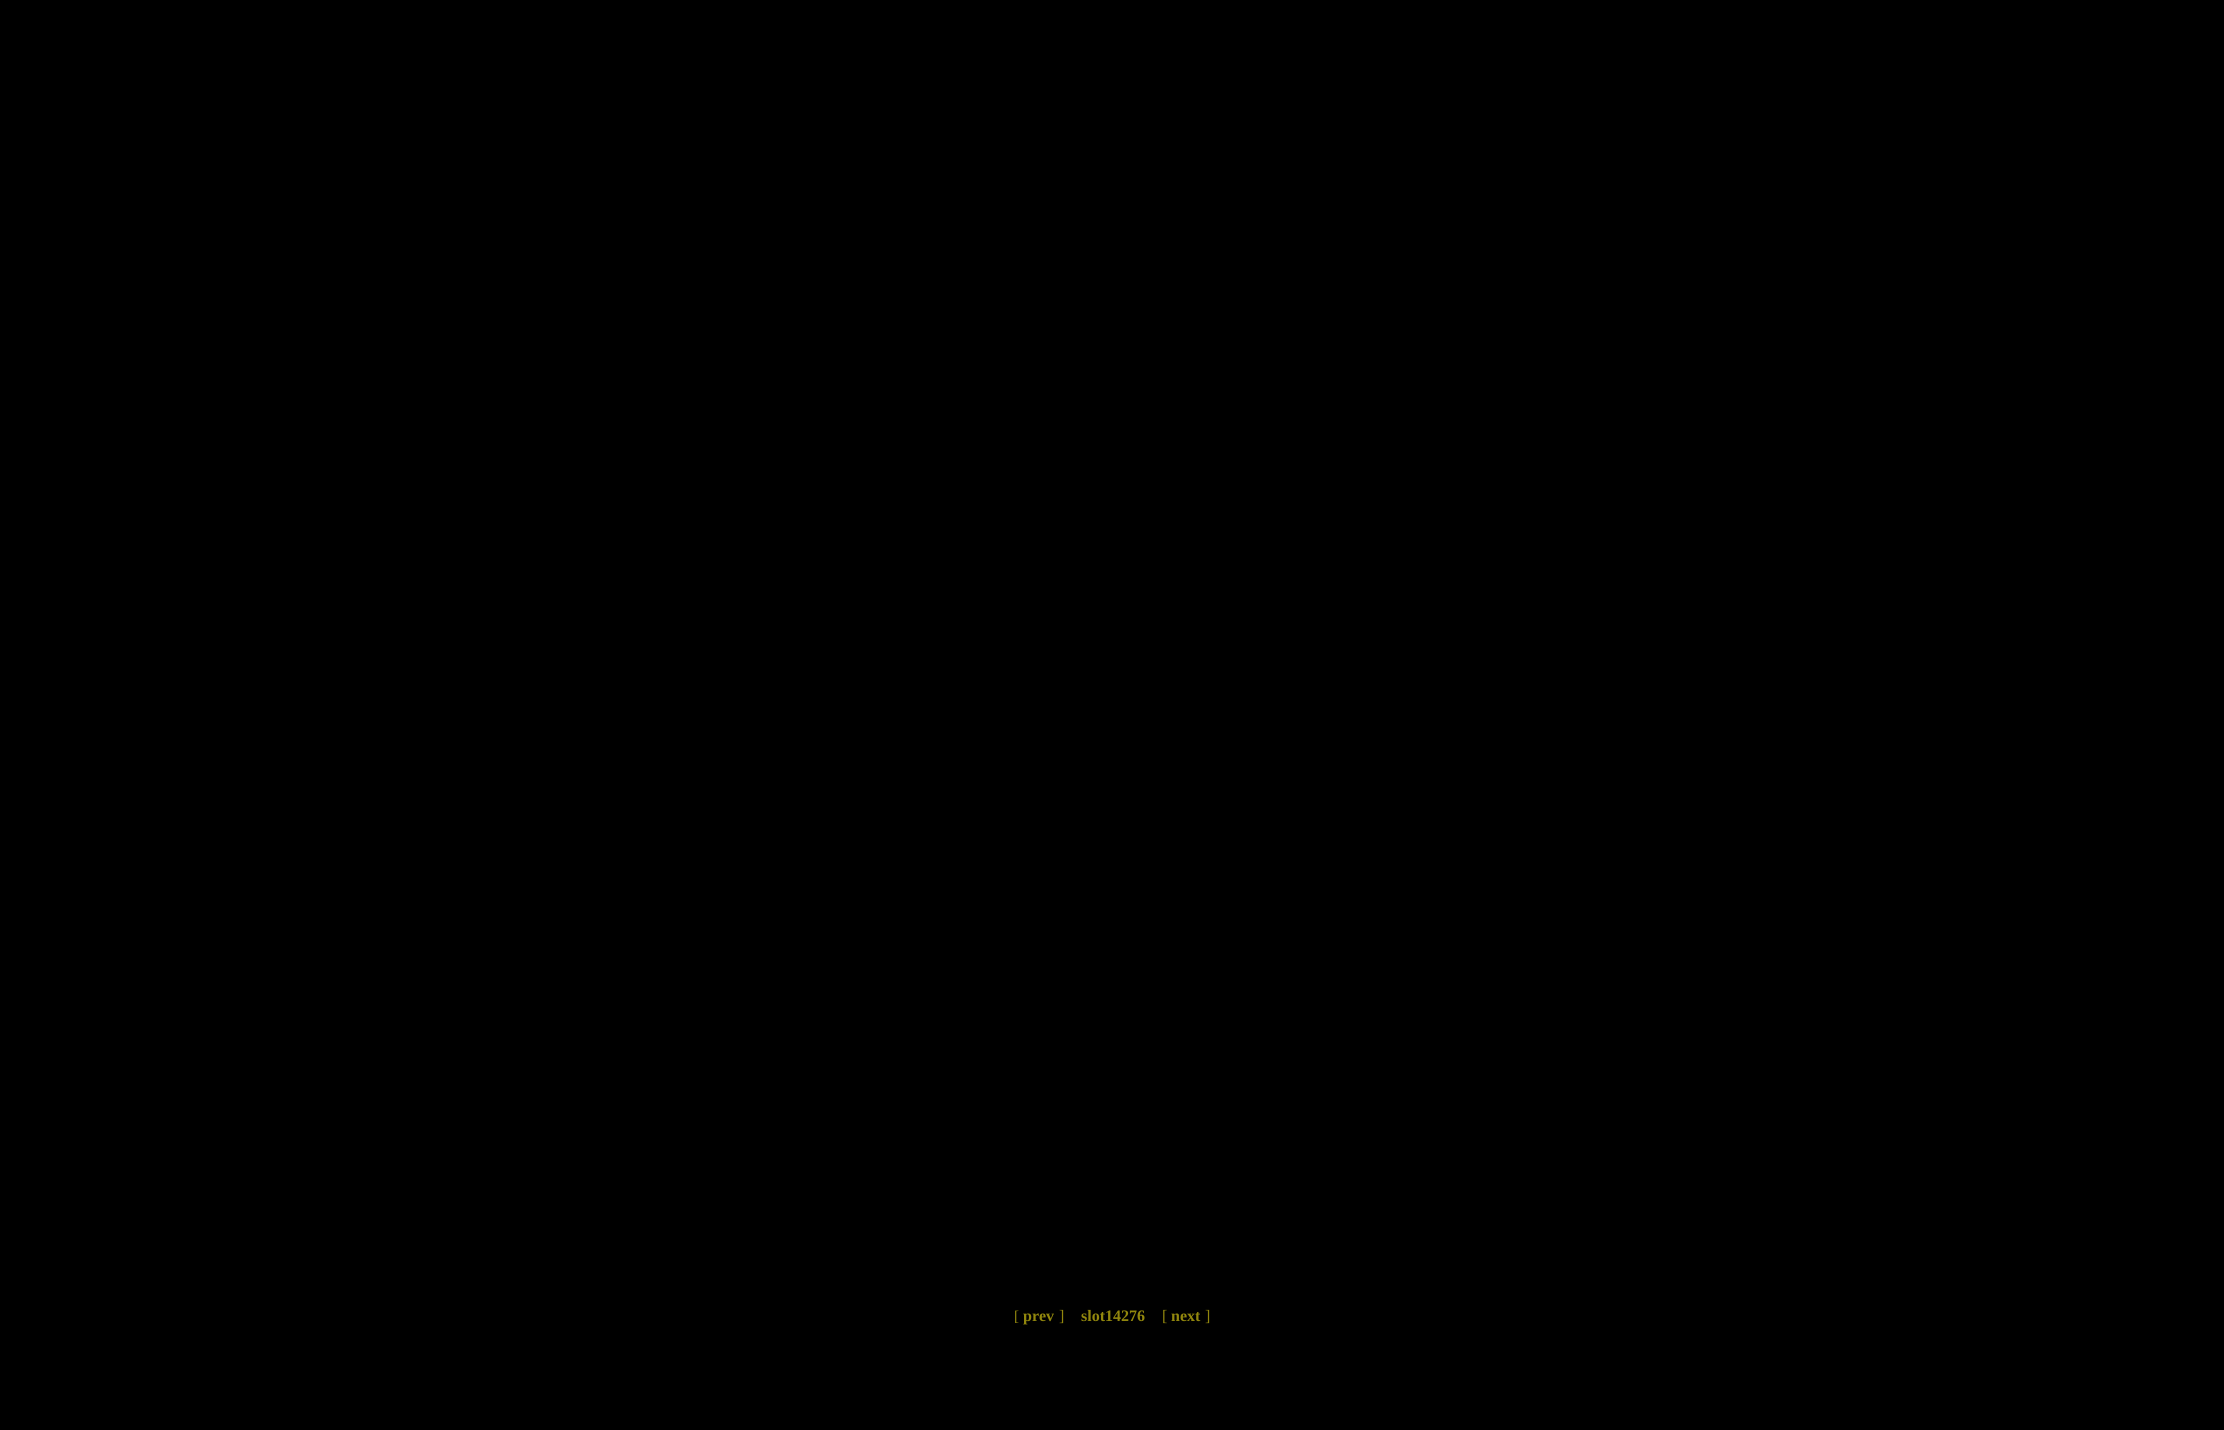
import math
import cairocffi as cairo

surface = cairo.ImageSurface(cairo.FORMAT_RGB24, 2224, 1430)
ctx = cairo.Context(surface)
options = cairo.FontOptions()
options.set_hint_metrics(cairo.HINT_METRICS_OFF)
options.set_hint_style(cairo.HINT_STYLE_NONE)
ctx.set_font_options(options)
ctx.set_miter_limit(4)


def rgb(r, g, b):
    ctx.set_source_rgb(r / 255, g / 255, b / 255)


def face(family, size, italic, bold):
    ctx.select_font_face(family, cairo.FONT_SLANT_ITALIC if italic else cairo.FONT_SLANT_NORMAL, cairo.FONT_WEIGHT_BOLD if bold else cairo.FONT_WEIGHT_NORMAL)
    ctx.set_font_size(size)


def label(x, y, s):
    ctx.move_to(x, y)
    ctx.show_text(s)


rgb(0, 0, 0)
ctx.paint()
face('Liberation Serif', 15, 0, 0)
rgb(146, 135, 13)
label(1014, 1321, '[')
face('Liberation Serif', 16, 0, 1)
label(1023, 1321, 'prev')
face('Liberation Serif', 16, 0, 0)
label(1059, 1321, ']')
face('Liberation Serif', 16, 0, 1)
label(1081, 1321, 'slot14276')
face('Liberation Serif', 16, 0, 0)
label(1162, 1321, '[')
face('Liberation Serif', 16, 0, 1)
label(1171, 1321, 'next')
face('Liberation Serif', 16, 0, 0)
label(1205, 1321, ']')
surface.write_to_png('render.png')
